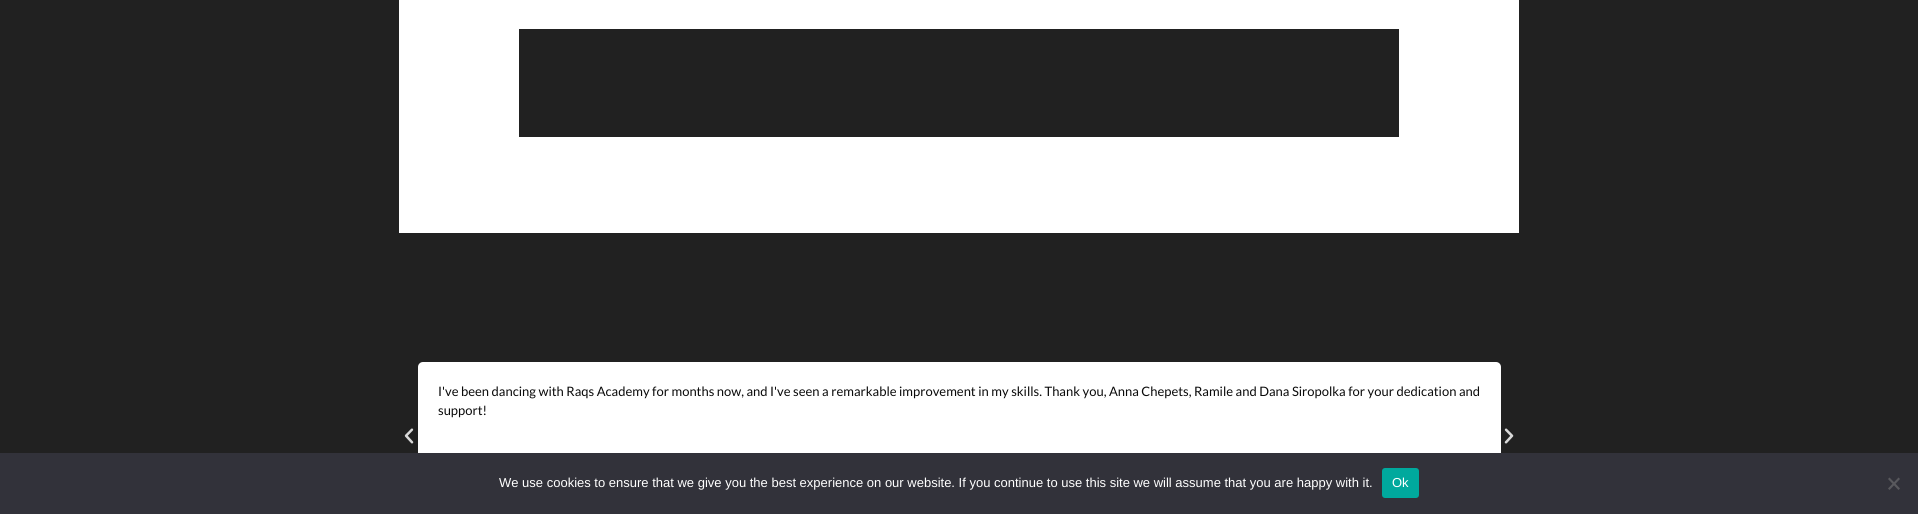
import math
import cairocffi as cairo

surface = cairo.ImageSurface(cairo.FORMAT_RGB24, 1918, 514)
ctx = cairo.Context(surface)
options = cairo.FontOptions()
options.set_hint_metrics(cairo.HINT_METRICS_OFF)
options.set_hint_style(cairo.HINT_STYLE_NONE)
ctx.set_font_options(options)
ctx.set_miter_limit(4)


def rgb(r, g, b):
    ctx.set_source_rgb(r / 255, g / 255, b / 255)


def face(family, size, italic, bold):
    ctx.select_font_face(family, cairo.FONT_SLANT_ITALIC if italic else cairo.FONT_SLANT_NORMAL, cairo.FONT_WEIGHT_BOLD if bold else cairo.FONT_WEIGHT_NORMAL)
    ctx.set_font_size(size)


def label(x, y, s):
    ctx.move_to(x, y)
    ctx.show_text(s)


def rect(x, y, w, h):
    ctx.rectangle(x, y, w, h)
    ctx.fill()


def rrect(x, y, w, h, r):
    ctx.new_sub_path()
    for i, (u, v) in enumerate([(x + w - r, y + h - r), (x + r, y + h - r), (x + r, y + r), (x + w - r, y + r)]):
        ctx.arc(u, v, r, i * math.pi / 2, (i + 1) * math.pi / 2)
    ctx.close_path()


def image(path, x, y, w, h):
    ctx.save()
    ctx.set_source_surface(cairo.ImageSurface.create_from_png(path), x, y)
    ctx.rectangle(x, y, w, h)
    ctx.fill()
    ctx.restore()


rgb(33, 33, 33)
ctx.paint()
rgb(255, 255, 255)
rect(399, 0, 1120, 233)
rgb(33, 33, 33)
rect(519, 29, 880, 108)
rgb(255, 255, 255)
rrect(418, 362, 1083, 149, 5)
ctx.fill()
face('Lato', 13, 0, 0)
rgb(10, 10, 10)
label(438, 396, 'I\'ve been dancing with Raqs Academy for months now, and I\'ve seen a remarkable improvement in my skills. Thank you, Anna Chepets, Ramile and Dana Siropolka for your dedication and')
label(438, 415, 'support!')
image('image0.png', 404, 428, 10, 16)
image('image1.png', 1504, 428, 10, 16)
rgb(50, 50, 58)
rect(0, 453, 1918, 61)
face('Liberation Sans', 13, 0, 0)
rgb(255, 255, 255)
label(499, 487, 'We use cookies to ensure that we give you the best experience on our website. If you continue to use this site we will assume that you are happy with it.')
rgb(0, 169, 157)
rrect(1382, 468, 37, 30, 3)
ctx.fill()
rgb(255, 255, 255)
label(1392, 487, 'Ok')
rgb(89, 89, 93)
ctx.new_path()
ctx.move_to(1898.5, 477.5)
ctx.line_to(1900, 479)
ctx.line_to(1889.5, 490)
ctx.line_to(1888, 488.5)
ctx.close_path()
ctx.fill()
ctx.new_path()
ctx.move_to(1888, 479)
ctx.line_to(1889.5, 477.5)
ctx.line_to(1900, 488.5)
ctx.line_to(1898.5, 490)
ctx.close_path()
ctx.fill()
surface.write_to_png('render.png')
